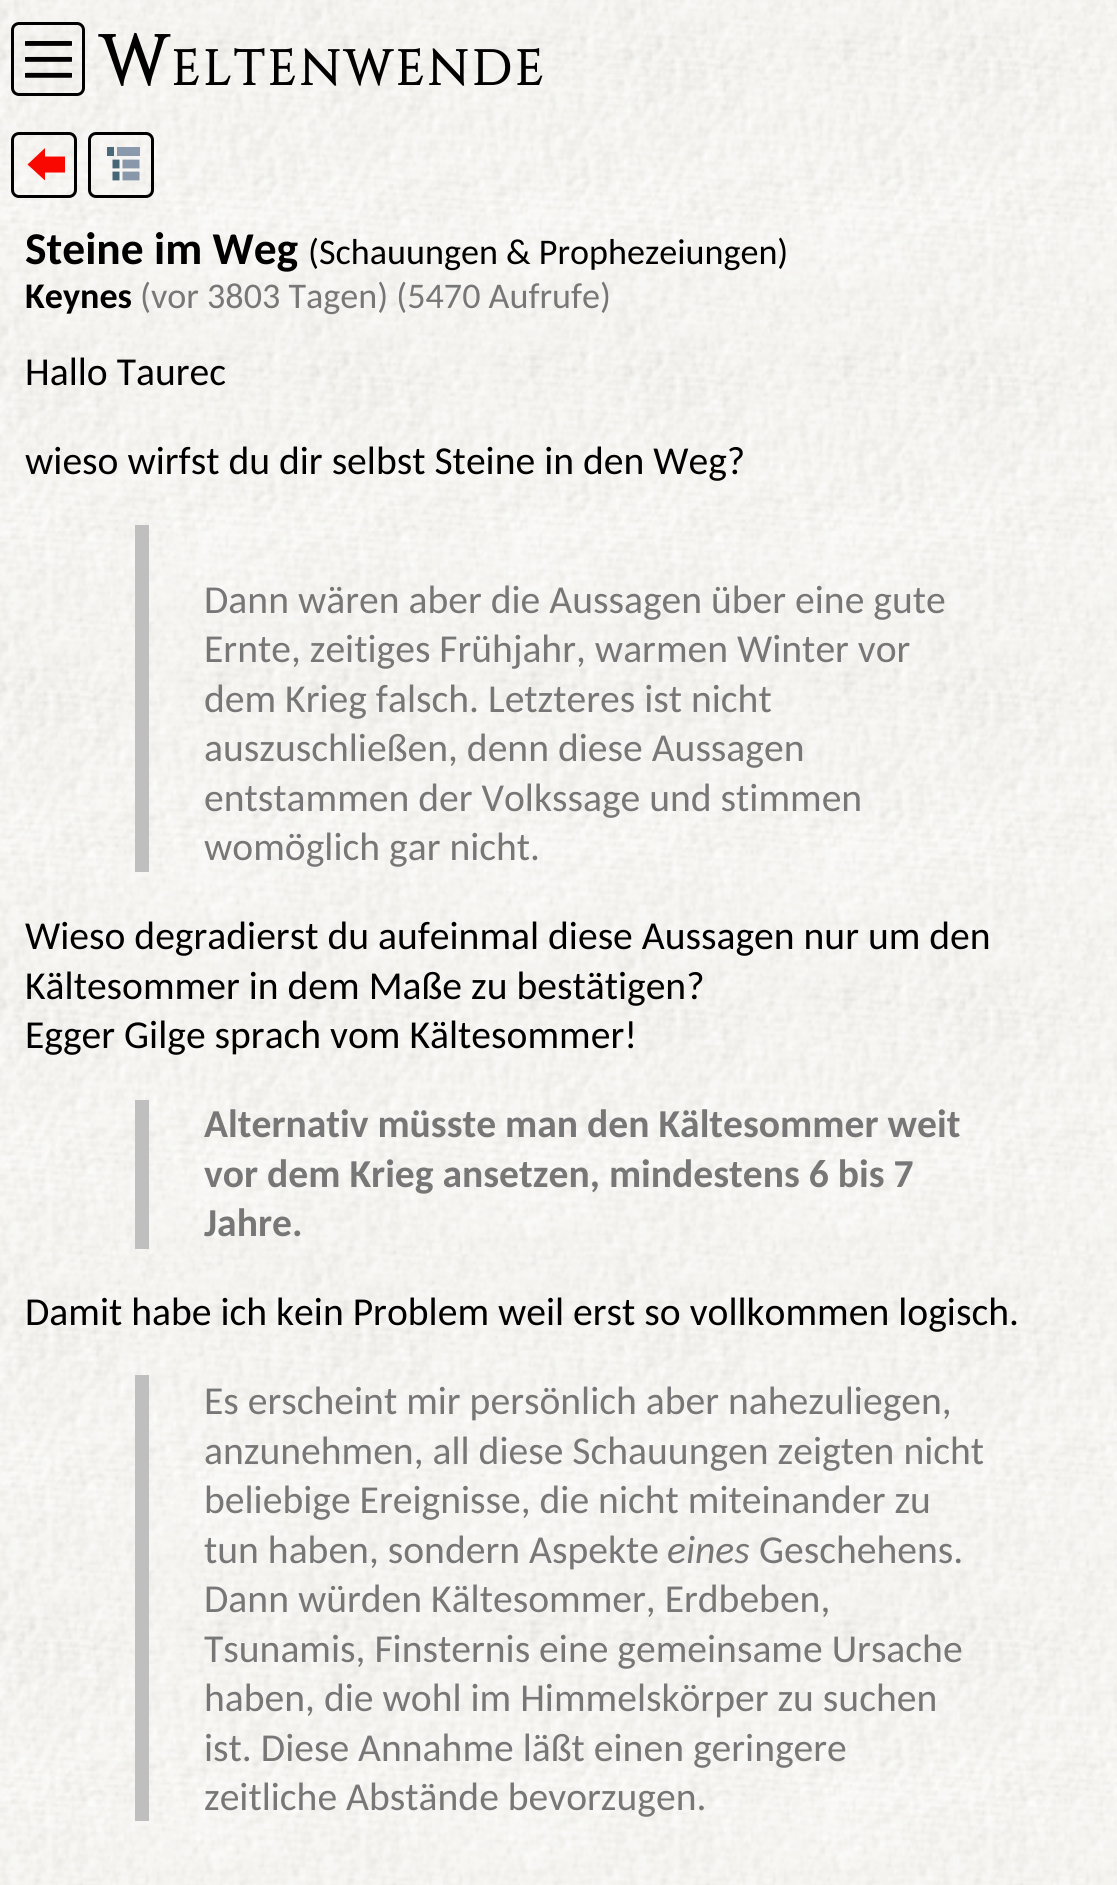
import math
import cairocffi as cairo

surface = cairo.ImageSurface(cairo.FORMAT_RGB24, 1117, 1885)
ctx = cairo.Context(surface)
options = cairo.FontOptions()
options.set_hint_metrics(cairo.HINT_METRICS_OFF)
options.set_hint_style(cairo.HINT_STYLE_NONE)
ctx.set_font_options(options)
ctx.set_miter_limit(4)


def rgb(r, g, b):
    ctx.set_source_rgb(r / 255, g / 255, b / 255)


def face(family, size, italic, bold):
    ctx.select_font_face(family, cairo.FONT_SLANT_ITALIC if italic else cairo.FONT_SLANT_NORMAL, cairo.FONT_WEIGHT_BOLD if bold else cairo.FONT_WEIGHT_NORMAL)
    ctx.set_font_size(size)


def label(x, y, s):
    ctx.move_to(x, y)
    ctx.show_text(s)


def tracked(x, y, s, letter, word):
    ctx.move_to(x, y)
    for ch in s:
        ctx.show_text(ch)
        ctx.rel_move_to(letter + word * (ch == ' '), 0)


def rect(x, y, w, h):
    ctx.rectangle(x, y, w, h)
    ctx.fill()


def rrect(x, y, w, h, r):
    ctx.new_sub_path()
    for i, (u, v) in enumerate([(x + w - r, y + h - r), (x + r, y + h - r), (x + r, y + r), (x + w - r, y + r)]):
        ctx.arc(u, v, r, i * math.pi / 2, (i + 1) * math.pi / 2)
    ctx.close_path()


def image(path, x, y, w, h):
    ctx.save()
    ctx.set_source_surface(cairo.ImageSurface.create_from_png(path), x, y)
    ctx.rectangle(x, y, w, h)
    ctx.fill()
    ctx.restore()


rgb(255, 255, 255)
ctx.paint()
image('image0.png', 0, 0, 1117, 1885)
rrect(12.5, 23.5, 71, 71, 6.5)
rgb(0, 0, 0)
ctx.set_line_width(3)
ctx.stroke()
image('image1.png', 25, 41, 47, 37)
face('Cinzel', 70, 0, 1)
tracked(99, 85, 'W', 3.25, 0)
face('Cinzel', 49.25, 0, 1)
tracked(171, 85, 'ELTENWENDE', 3.25, 0)
rrect(12.5, 133.5, 63, 63, 6.5)
ctx.stroke()
rgb(248, 8, 0)
ctx.new_path()
ctx.move_to(45, 172.5)
ctx.line_to(65, 172.5)
ctx.line_to(65, 156.5)
ctx.line_to(45, 156.5)
ctx.line_to(45, 148)
ctx.line_to(27.5, 164.5)
ctx.line_to(45, 180.5)
ctx.close_path()
ctx.fill()
rrect(89.5, 133.5, 63, 63, 6.5)
rgb(0, 0, 0)
ctx.stroke()
ctx.set_source_rgba(0.267, 0.4, 0.467, 0.98)
rect(107, 147, 7, 9)
ctx.set_source_rgba(0.533, 0.596, 0.667, 0.98)
rect(117, 147, 23, 9)
ctx.new_path()
ctx.move_to(112.5, 164)
ctx.line_to(119.5, 164)
rgb(68, 102, 119)
ctx.set_line_width(8.8)
ctx.stroke()
ctx.new_path()
ctx.move_to(122.5, 164)
ctx.line_to(139.5, 164)
rgb(136, 152, 170)
ctx.stroke()
ctx.new_path()
ctx.move_to(112.5, 176)
ctx.line_to(119.5, 176)
rgb(68, 102, 119)
ctx.stroke()
ctx.new_path()
ctx.move_to(122.5, 176)
ctx.line_to(139.5, 176)
rgb(136, 152, 170)
ctx.stroke()
face('Carlito', 45.5, 0, 1)
rgb(0, 0, 0)
label(25, 264, 'Steine im Weg')
face('Carlito', 36.1, 0, 0)
label(308, 264, '(Schauungen & Prophezeiungen)')
face('Carlito', 36.1, 0, 1)
label(25, 308, 'Keynes')
face('Carlito', 36.1, 0, 0)
rgb(119, 119, 119)
label(140, 308, '(vor 3803 Tagen) (5470 Aufrufe)')
face('Carlito', 39.6, 0, 0)
rgb(0, 0, 0)
label(25, 385, 'Hallo Taurec')
label(25, 474, 'wieso wirfst du dir selbst Steine in den Weg?')
rgb(191, 191, 191)
rect(135, 525, 14, 347)
rgb(119, 119, 119)
label(204, 613, 'Dann wären aber die Aussagen über eine gute')
label(204, 662, 'Ernte, zeitiges Frühjahr, warmen Winter vor')
label(204, 712, 'dem Krieg falsch. Letzteres ist nicht')
label(204, 761, 'auszuschließen, denn diese Aussagen')
label(204, 811, 'entstammen der Volkssage und stimmen')
label(204, 860, 'womöglich gar nicht.')
rgb(0, 0, 0)
label(25, 949, 'Wieso degradierst du aufeinmal diese Aussagen nur um den')
label(25, 999, 'Kältesommer in dem Maße zu bestätigen?')
label(25, 1048, 'Egger Gilge sprach vom Kältesommer!')
rgb(191, 191, 191)
rect(135, 1100, 14, 149)
face('Carlito', 39.6, 0, 1)
rgb(119, 119, 119)
label(204, 1137, 'Alternativ müsste man den Kältesommer weit')
label(204, 1187, 'vor dem Krieg ansetzen, mindestens 6 bis 7')
label(204, 1236, 'Jahre.')
face('Carlito', 39.6, 0, 0)
rgb(0, 0, 0)
label(25, 1325, 'Damit habe ich kein Problem weil erst so vollkommen logisch.')
rgb(191, 191, 191)
rect(135, 1375, 14, 446)
rgb(119, 119, 119)
label(204, 1414, 'Es erscheint mir persönlich aber nahezuliegen,')
label(204, 1464, 'anzunehmen, all diese Schauungen zeigten nicht')
label(204, 1513, 'beliebige Ereignisse, die nicht miteinander zu')
label(204, 1563, 'tun haben, sondern Aspekte')
face('Carlito', 39.6, 1, 0)
label(667, 1563, 'eines')
face('Carlito', 39.6, 0, 0)
label(759, 1563, 'Geschehens.')
label(204, 1612, 'Dann würden Kältesommer, Erdbeben,')
label(204, 1662, 'Tsunamis, Finsternis eine gemeinsame Ursache')
label(204, 1711, 'haben, die wohl im Himmelskörper zu suchen')
label(204, 1761, 'ist. Diese Annahme läßt einen geringere')
label(204, 1810, 'zeitliche Abstände bevorzugen.')
surface.write_to_png('render.png')
